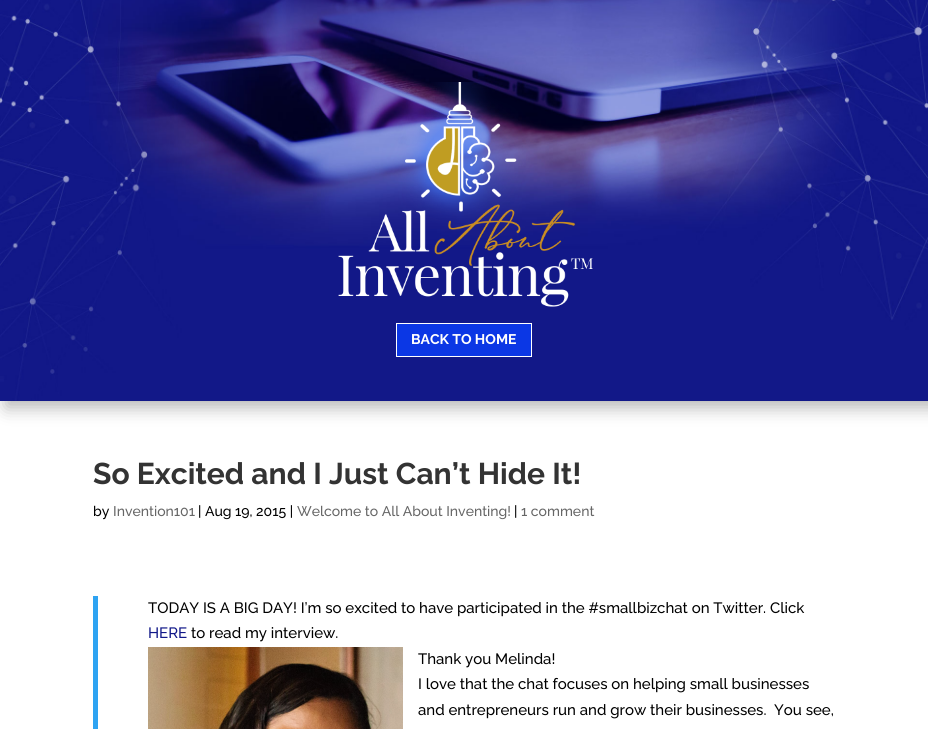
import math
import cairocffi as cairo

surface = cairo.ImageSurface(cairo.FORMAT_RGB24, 928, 729)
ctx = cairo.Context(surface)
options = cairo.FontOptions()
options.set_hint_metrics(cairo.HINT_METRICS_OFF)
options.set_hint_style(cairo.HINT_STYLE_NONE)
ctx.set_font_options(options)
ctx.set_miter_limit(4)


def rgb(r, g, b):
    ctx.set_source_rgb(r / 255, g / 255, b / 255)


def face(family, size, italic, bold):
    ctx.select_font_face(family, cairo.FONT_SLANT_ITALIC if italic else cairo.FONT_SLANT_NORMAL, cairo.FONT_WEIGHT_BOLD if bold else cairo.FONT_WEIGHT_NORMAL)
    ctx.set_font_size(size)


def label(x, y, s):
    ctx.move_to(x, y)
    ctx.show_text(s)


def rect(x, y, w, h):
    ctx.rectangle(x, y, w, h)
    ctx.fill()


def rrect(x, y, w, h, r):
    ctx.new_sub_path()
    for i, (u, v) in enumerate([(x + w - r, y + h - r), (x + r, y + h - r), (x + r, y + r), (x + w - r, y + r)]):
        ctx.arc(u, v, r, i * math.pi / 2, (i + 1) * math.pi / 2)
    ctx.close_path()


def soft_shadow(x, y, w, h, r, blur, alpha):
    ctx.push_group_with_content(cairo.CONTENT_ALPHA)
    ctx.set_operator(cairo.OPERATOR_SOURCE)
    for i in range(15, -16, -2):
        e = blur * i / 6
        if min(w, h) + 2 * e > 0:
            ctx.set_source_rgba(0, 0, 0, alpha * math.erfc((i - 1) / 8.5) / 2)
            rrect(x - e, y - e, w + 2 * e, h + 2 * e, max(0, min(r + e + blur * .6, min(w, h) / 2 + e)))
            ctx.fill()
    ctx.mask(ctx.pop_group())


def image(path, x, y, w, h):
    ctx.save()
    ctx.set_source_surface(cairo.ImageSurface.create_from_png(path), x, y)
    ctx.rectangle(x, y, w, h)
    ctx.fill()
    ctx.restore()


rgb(255, 255, 255)
ctx.paint()
rgb(0, 0, 0)
soft_shadow(6, 5, 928, 402, 0, 9, 0.3)
image('image0.png', 0, 0, 928, 401)
image('image1.png', 338, 82, 255, 225)
rgb(11, 55, 229)
ctx.rectangle(396.5, 323.5, 135, 33)
ctx.fill_preserve()
rgb(255, 255, 255)
ctx.set_line_width(1)
ctx.stroke()
face('Raleway', 14, 0, 1)
label(411, 344, 'BACK TO HOME')
face('Raleway', 30, 0, 1)
rgb(51, 51, 51)
label(93, 484, 'So Excited and I Just Can’t Hide It!')
face('Raleway Medium', 14, 0, 0)
rgb(0, 0, 0)
label(93, 516, 'by')
rgb(102, 102, 102)
label(113, 516, 'Invention101')
rgb(0, 0, 0)
label(198, 516, '| Aug 19, 2015 |')
rgb(102, 102, 102)
label(297, 516, 'Welcome to All About Inventing!')
rgb(0, 0, 0)
label(514, 516, '|')
rgb(102, 102, 102)
label(521, 516, '1 comment')
rgb(46, 163, 242)
rect(93, 596, 5, 133)
face('Raleway Medium', 15, 0, 0)
rgb(0, 0, 0)
label(148, 613, 'TODAY IS A BIG DAY! I’m so excited to have participated in the #smallbizchat on Twitter. Click')
rgb(17, 24, 136)
label(148, 638, 'HERE')
rgb(0, 0, 0)
label(191, 638, 'to read my interview.')
image('image2.png', 148, 647, 255, 82)
label(418, 664, 'Thank you Melinda!')
label(418, 689, 'I love that the chat focuses on helping small businesses')
label(418, 715, 'and entrepreneurs run and grow their businesses.  You see,')
surface.write_to_png('render.png')
